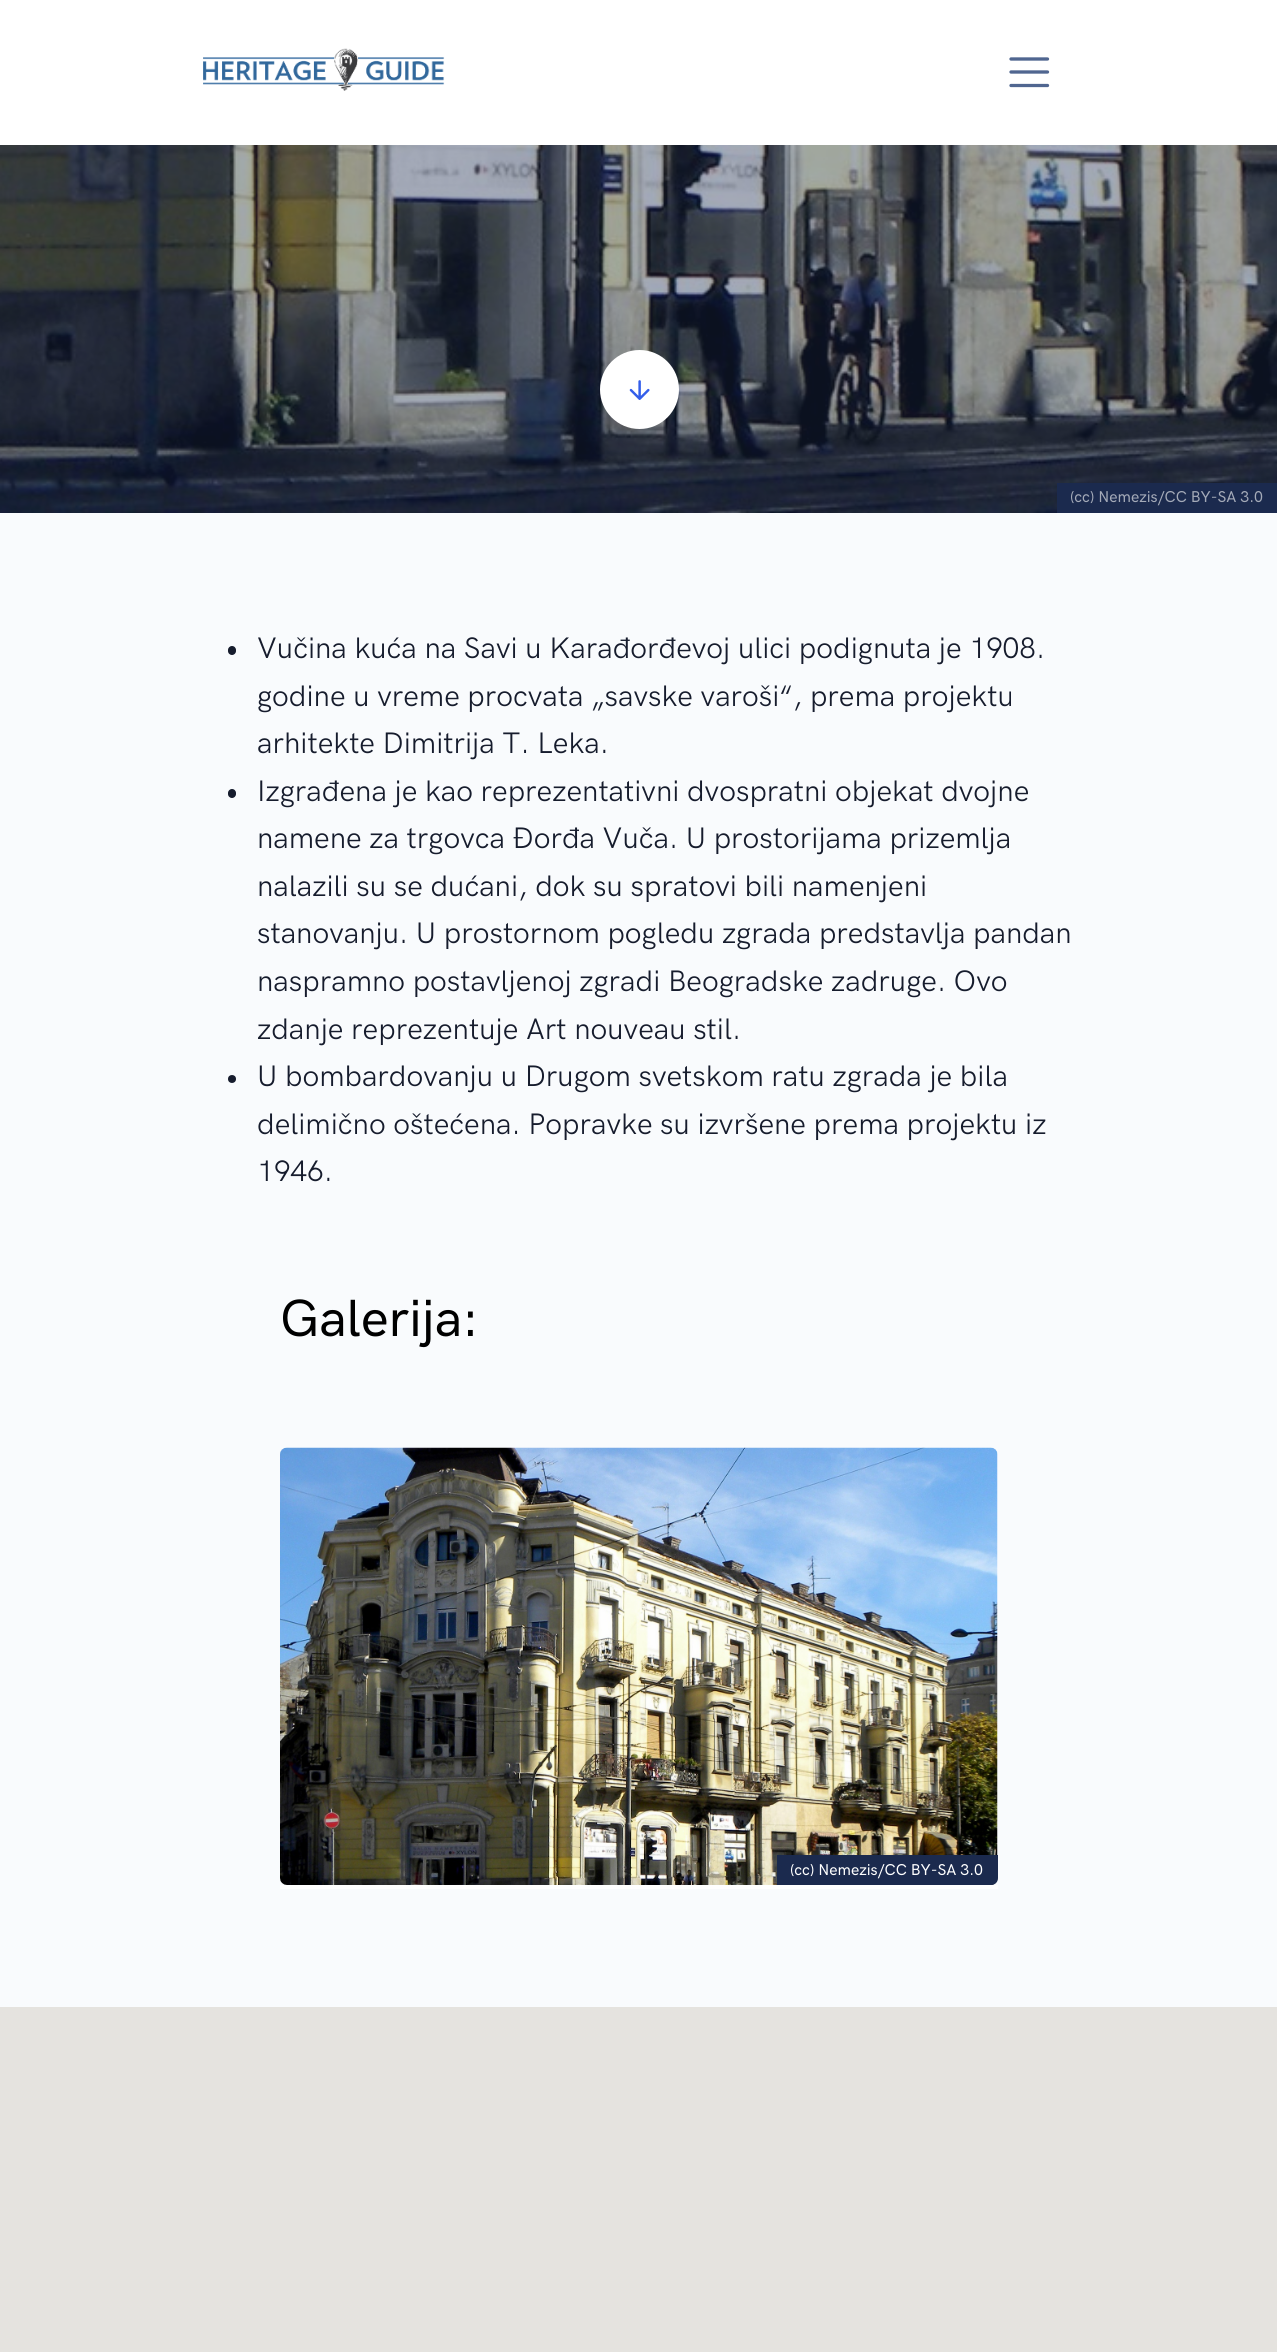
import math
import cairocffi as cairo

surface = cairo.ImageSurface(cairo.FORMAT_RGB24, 1277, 2352)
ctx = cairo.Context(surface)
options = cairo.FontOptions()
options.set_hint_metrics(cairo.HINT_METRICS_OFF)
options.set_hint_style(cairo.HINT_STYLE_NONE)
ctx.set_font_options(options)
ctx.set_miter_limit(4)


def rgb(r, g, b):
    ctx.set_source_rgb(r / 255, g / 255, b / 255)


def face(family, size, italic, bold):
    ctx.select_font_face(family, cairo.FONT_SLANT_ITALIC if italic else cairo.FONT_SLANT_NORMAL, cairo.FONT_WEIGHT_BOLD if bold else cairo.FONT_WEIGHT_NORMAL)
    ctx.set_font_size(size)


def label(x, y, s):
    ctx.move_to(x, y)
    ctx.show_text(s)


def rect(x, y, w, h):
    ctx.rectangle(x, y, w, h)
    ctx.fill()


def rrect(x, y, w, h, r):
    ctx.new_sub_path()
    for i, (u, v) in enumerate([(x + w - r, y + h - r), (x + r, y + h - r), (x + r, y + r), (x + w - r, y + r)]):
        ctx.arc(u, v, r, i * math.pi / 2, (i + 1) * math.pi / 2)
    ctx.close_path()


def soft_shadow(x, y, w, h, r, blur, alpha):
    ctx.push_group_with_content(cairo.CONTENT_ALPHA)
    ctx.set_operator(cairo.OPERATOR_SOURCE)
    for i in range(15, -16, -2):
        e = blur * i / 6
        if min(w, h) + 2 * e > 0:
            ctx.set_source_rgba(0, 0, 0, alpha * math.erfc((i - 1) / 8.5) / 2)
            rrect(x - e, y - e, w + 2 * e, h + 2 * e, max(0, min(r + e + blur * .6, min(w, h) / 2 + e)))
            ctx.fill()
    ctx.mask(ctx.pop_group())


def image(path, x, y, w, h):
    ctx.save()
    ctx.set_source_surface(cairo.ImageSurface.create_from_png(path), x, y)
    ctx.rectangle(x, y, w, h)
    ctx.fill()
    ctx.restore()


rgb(249, 251, 253)
ctx.paint()
rgb(255, 255, 255)
rect(0, 0, 1277, 145)
image('image0.png', 203, 48, 242, 43)
ctx.new_path()
ctx.move_to(1011, 59)
ctx.line_to(1047.5, 59)
ctx.move_to(1011, 72)
ctx.line_to(1047.5, 72)
ctx.move_to(1011, 85.5)
ctx.line_to(1047.5, 85.5)
rgb(80, 102, 144)
ctx.set_line_width(3.3)
ctx.set_line_cap(cairo.LINE_CAP_ROUND)
ctx.stroke()
image('image2.png', 0, 145, 1277, 368)
rgb(22, 28, 45)
soft_shadow(600, 364, 79, 79, 39.5, 21, 0.1)
rgb(255, 255, 255)
ctx.arc(639.5, 389.5, 39.5, 0, 2 * math.pi)
ctx.fill()
image('image1.png', 629, 380, 21, 20)
rgb(27, 42, 78)
rect(1057, 483, 220, 30)
face('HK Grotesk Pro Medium', 15.75, 0, 0)
rgb(164, 170, 184)
label(1070, 502, '(cc) Nemezis/CC BY-SA 3.0')
rgb(22, 28, 45)
rrect(228, 646, 8, 9, 4)
ctx.fill()
face('HK Grotesk Pro', 29.75, 0, 0)
label(257, 658, 'Vučina kuća na Savi u Karađorđevoj ulici podignuta je 1908.')
label(257, 706, 'godine u vreme procvata „savske varoši“, prema projektu')
label(257, 753, 'arhitekte Dimitrija T. Leka.')
rrect(228, 789, 8, 9, 4)
ctx.fill()
label(257, 801, 'Izgrađena je kao reprezentativni dvospratni objekat dvojne')
label(257, 848, 'namene za trgovca Đorđa Vuča. U prostorijama prizemlja')
label(257, 896, 'nalazili su se dućani, dok su spratovi bili namenjeni')
label(257, 943, 'stanovanju. U prostornom pogledu zgrada predstavlja pandan')
label(257, 991, 'naspramno postavljenoj zgradi Beogradske zadruge. Ovo')
label(257, 1039, 'zdanje reprezentuje Art nouveau stil.')
ctx.new_path()
ctx.arc(232, 1079, 4, 0, 2 * math.pi)
ctx.fill()
label(257, 1086, 'U bombardovanju u Drugom svetskom ratu zgrada je bila')
label(257, 1134, 'delimično oštećena. Popravke su izvršene prema projektu iz')
label(257, 1181, '1946.')
face('HK Grotesk Pro Medium', 52.5, 0, 0)
rgb(0, 0, 0)
label(280, 1336, 'Galerija:')
rgb(255, 255, 255)
rect(280, 1885, 718, 4)
image('image3.png', 280, 1447, 718, 438)
rgb(27, 42, 78)
ctx.new_path()
ctx.move_to(777, 1855)
ctx.line_to(998, 1855)
ctx.line_to(998, 1878)
ctx.curve_to(998, 1882, 995, 1885, 991, 1885)
ctx.line_to(777, 1885)
ctx.close_path()
ctx.fill()
face('HK Grotesk Pro Medium', 15.75, 0, 0)
rgb(255, 255, 255)
label(790, 1875, '(cc) Nemezis/CC BY-SA 3.0')
rgb(229, 227, 223)
rect(0, 2007, 1277, 345)
surface.write_to_png('render.png')
